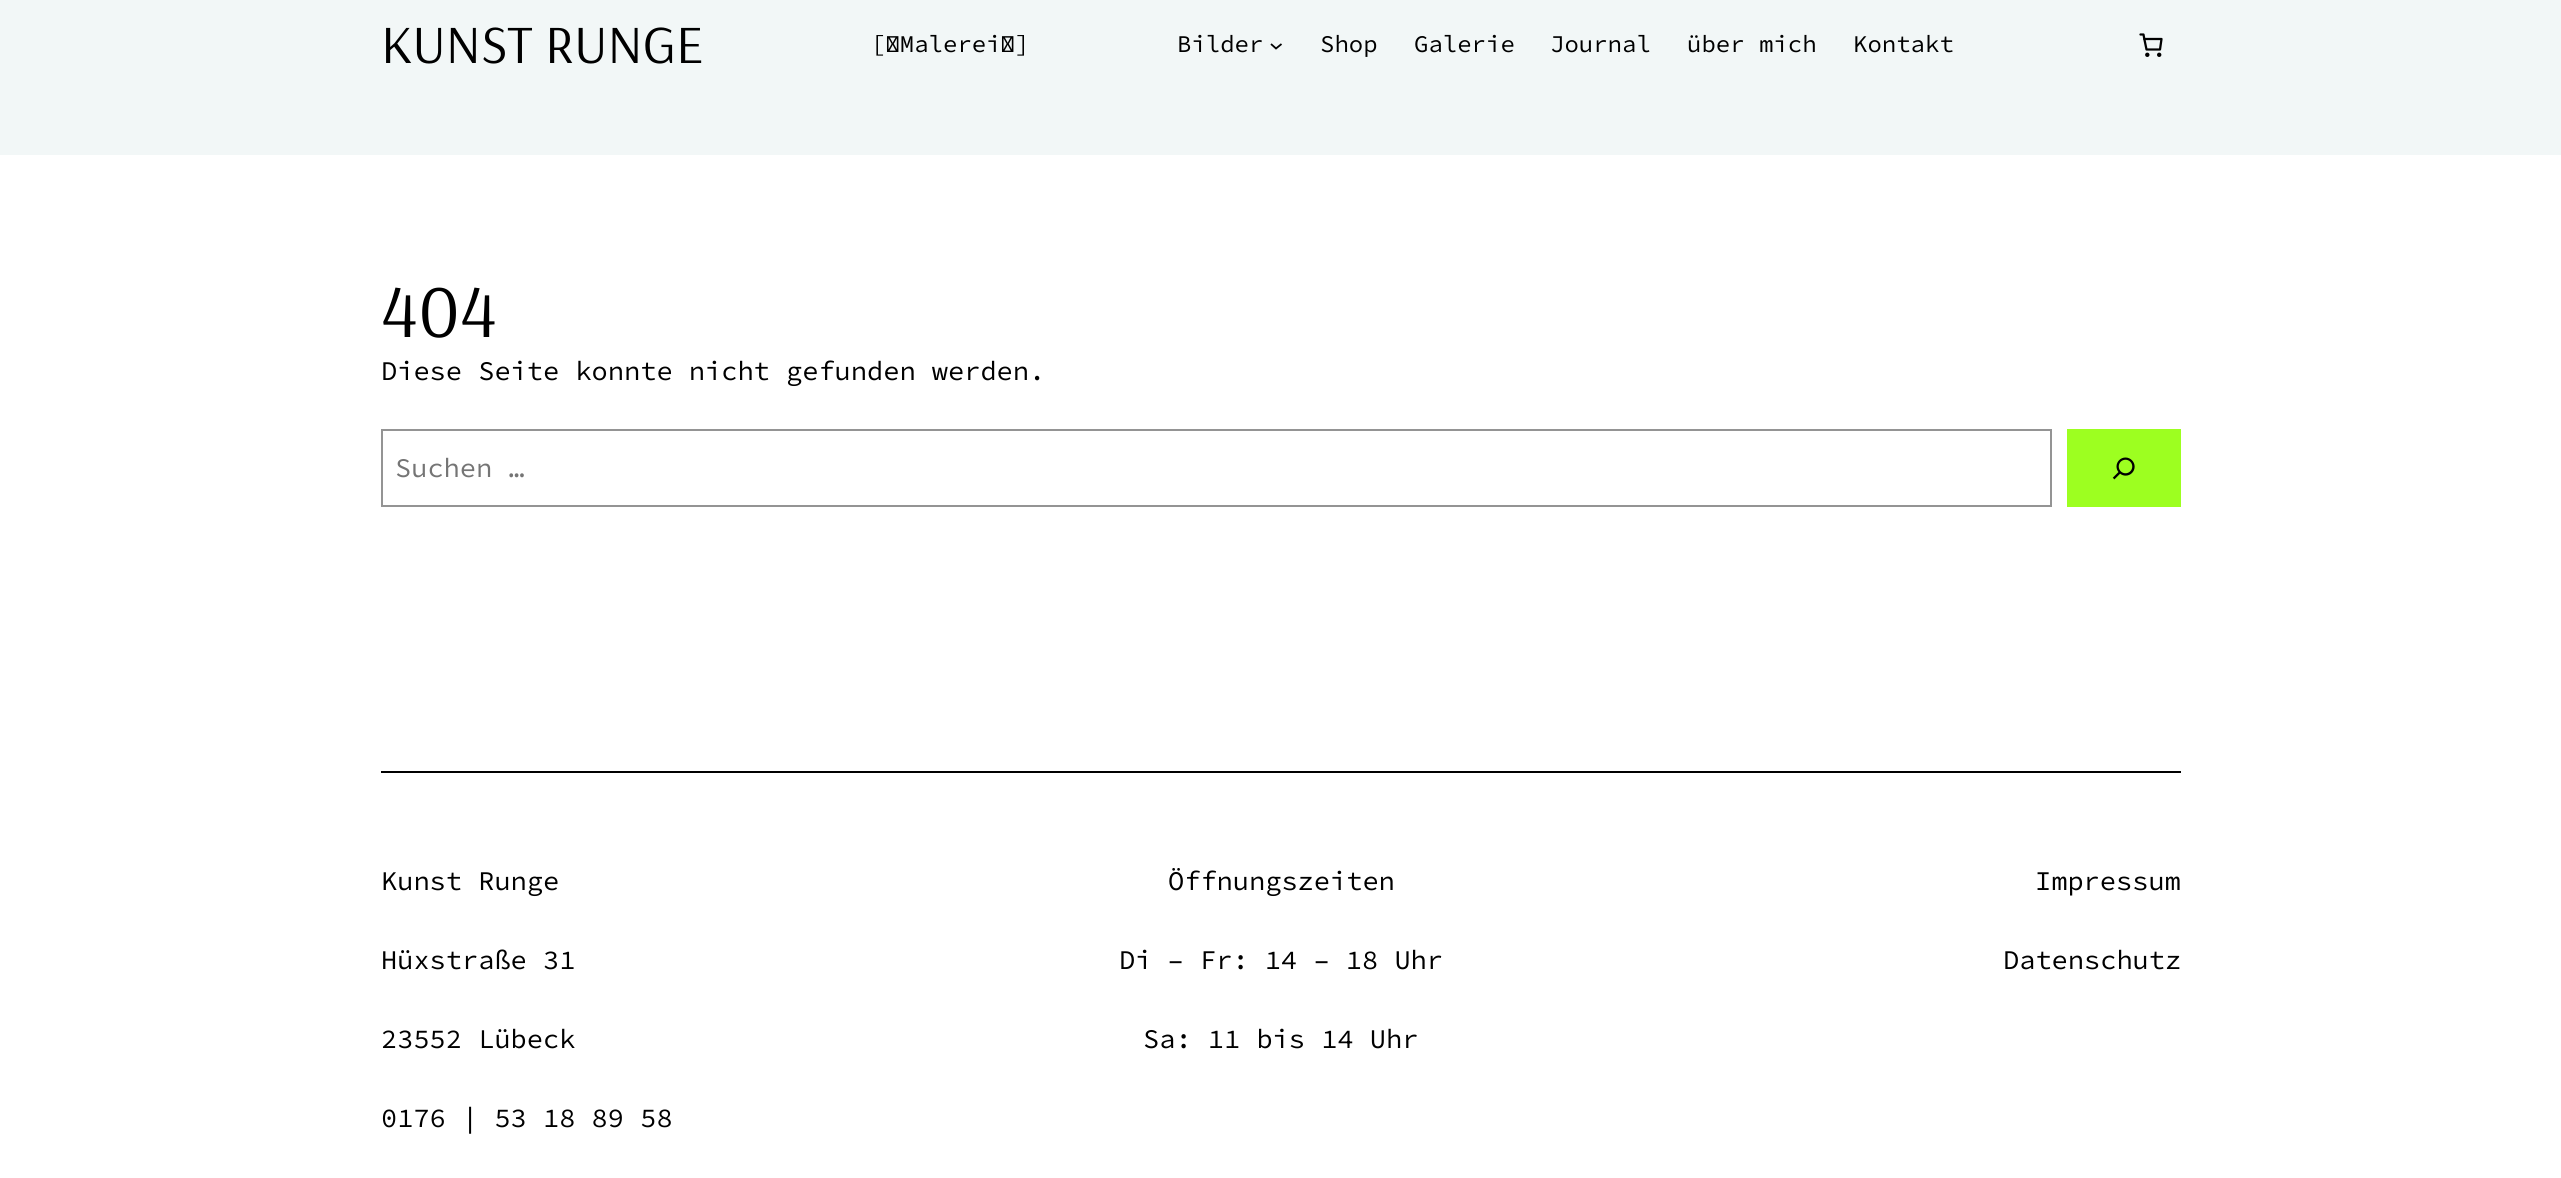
import math
import cairocffi as cairo

surface = cairo.ImageSurface(cairo.FORMAT_RGB24, 2561, 1178)
ctx = cairo.Context(surface)
options = cairo.FontOptions()
options.set_hint_metrics(cairo.HINT_METRICS_OFF)
options.set_hint_style(cairo.HINT_STYLE_NONE)
ctx.set_font_options(options)
ctx.set_miter_limit(4)


def rgb(r, g, b):
    ctx.set_source_rgb(r / 255, g / 255, b / 255)


def face(family, size, italic, bold):
    ctx.select_font_face(family, cairo.FONT_SLANT_ITALIC if italic else cairo.FONT_SLANT_NORMAL, cairo.FONT_WEIGHT_BOLD if bold else cairo.FONT_WEIGHT_NORMAL)
    ctx.set_font_size(size)


def label(x, y, s):
    ctx.move_to(x, y)
    ctx.show_text(s)


def rect(x, y, w, h):
    ctx.rectangle(x, y, w, h)
    ctx.fill()


def image(path, x, y, w, h):
    ctx.save()
    ctx.set_source_surface(cairo.ImageSurface.create_from_png(path), x, y)
    ctx.rectangle(x, y, w, h)
    ctx.fill()
    ctx.restore()


rgb(255, 255, 255)
ctx.paint()
rgb(242, 247, 247)
rect(0, 0, 2561, 155)
face('Arsenal', 54, 0, 0)
rgb(0, 0, 0)
label(381, 63, 'KUNST RUNGE')
face('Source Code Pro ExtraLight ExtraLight', 24, 0, 0)
label(871, 52, '[ Malerei ]')
label(1177, 52, 'Bilder')
ctx.new_path()
ctx.move_to(1271, 44)
ctx.line_to(1276, 48.5)
ctx.line_to(1281.5, 44)
ctx.set_line_width(1.8)
ctx.stroke()
label(1320, 52, 'Shop')
label(1414, 52, 'Galerie')
label(1550, 52, 'Journal')
label(1687, 52, 'über mich')
label(1853, 52, 'Kontakt')
image('image0.png', 2139, 33, 24, 24)
face('Arsenal', 75, 0, 0)
label(381, 337, '404')
face('Source Code Pro ExtraLight ExtraLight', 27, 0, 0)
label(381, 380, 'Diese Seite konnte nicht gefunden werden.')
ctx.rectangle(382, 430, 1669, 76)
rgb(148, 148, 148)
ctx.set_line_width(2)
ctx.stroke()
rgb(117, 117, 117)
label(395, 477, 'Suchen …')
rgb(157, 255, 32)
rect(2067, 429, 114, 78)
image('image1.png', 2112, 457, 23, 23)
rgb(0, 0, 0)
rect(381, 771, 1800, 2)
label(381, 890, 'Kunst Runge')
label(381, 969, 'Hüxstraße 31')
label(381, 1048, '23552 Lübeck')
label(381, 1127, '0176 | 53 18 89 58')
label(1168, 890, 'Öffnungszeiten')
label(1119, 969, 'Di – Fr: 14 – 18 Uhr')
label(1143, 1048, 'Sa: 11 bis 14 Uhr')
label(2035, 890, 'Impressum')
label(2003, 969, 'Datenschutz')
surface.write_to_png('render.png')
